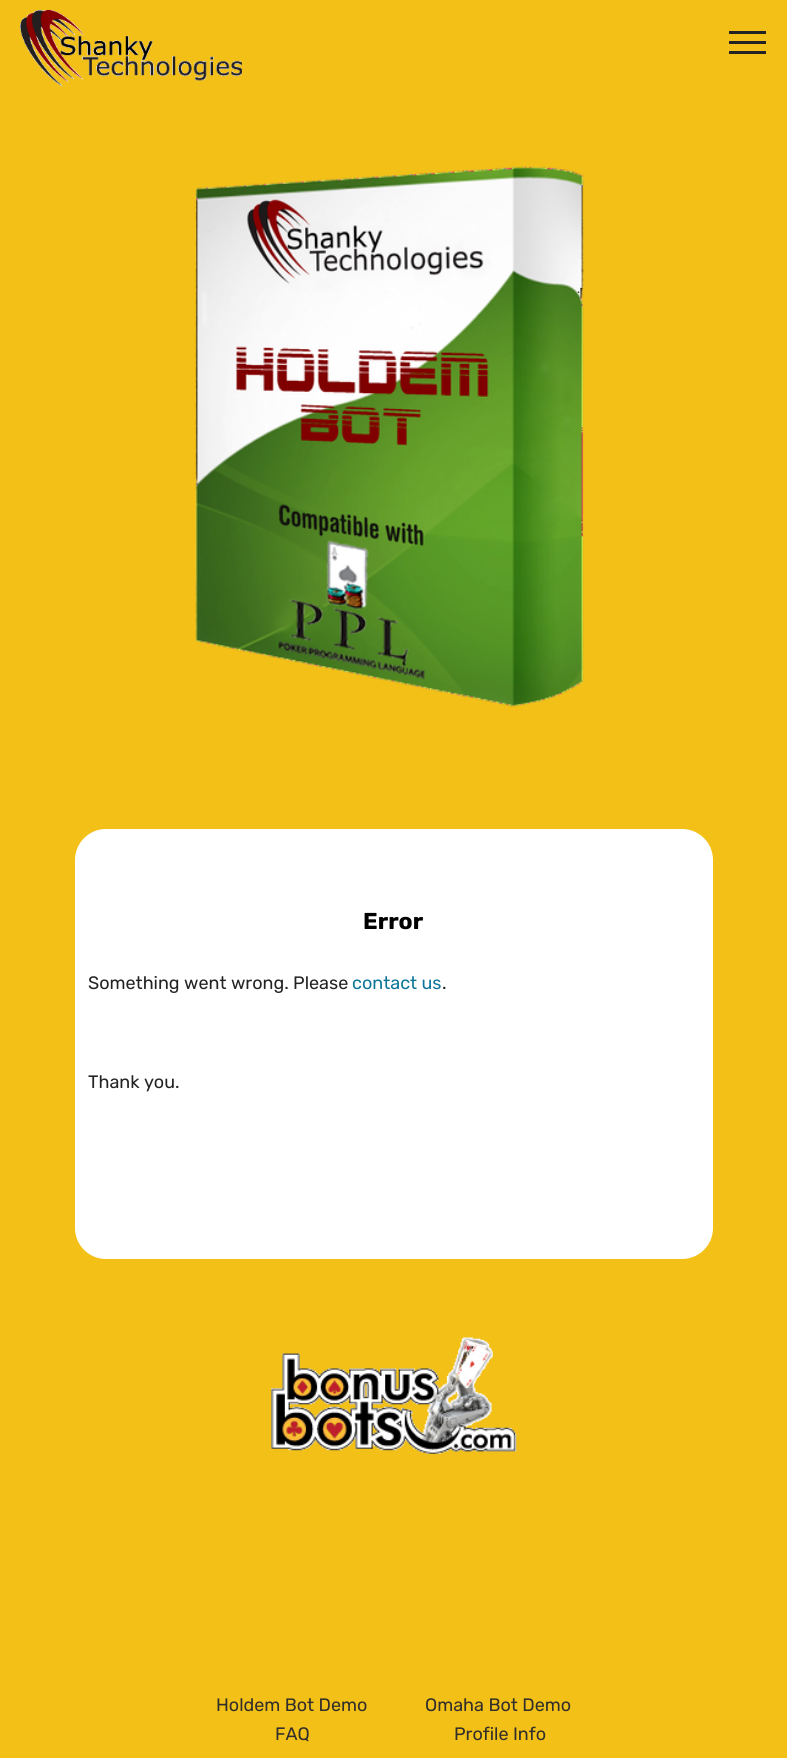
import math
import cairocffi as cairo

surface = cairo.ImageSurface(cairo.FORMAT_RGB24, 787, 1758)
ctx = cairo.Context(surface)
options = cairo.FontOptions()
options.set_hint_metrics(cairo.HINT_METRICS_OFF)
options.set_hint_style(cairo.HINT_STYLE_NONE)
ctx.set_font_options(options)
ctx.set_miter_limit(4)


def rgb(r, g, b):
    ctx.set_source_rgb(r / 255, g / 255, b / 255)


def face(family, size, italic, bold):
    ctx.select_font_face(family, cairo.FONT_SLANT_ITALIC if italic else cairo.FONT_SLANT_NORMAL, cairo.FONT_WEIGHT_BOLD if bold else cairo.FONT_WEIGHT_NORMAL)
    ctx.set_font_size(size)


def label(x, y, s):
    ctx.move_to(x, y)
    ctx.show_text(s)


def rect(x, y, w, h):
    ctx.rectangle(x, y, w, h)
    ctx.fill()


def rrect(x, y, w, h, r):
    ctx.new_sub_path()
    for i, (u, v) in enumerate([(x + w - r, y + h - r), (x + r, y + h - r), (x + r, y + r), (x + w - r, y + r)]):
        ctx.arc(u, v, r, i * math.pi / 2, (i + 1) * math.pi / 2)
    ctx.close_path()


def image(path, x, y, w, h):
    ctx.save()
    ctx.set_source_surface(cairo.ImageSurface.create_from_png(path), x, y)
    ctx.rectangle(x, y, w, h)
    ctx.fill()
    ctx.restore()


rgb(242, 192, 23)
ctx.paint()
image('image0.png', 20, 10, 222, 77)
rgb(35, 35, 35)
rect(729, 31, 37, 3)
rect(729, 41, 37, 3)
rect(729, 51, 37, 3)
image('image1.png', 195, 166, 389, 541)
rgb(255, 255, 255)
rrect(75, 829, 638, 430, 31)
ctx.fill()
face('Rubik', 23, 0, 1)
rgb(0, 0, 0)
label(363, 929, 'Error')
face('Rubik', 18, 0, 0)
rgb(35, 35, 35)
label(88, 989, 'Something went wrong. Please')
rgb(15, 118, 153)
label(352, 989, 'contact us')
rgb(35, 35, 35)
label(442, 989, '.')
label(88, 1088, 'Thank you.')
image('image2.png', 271, 1337, 246, 117)
rgb(49, 46, 43)
label(216, 1711, 'Holdem Bot Demo')
label(275, 1740, 'FAQ')
label(425, 1711, 'Omaha Bot Demo')
label(454, 1740, 'Profile Info')
surface.write_to_png('render.png')
